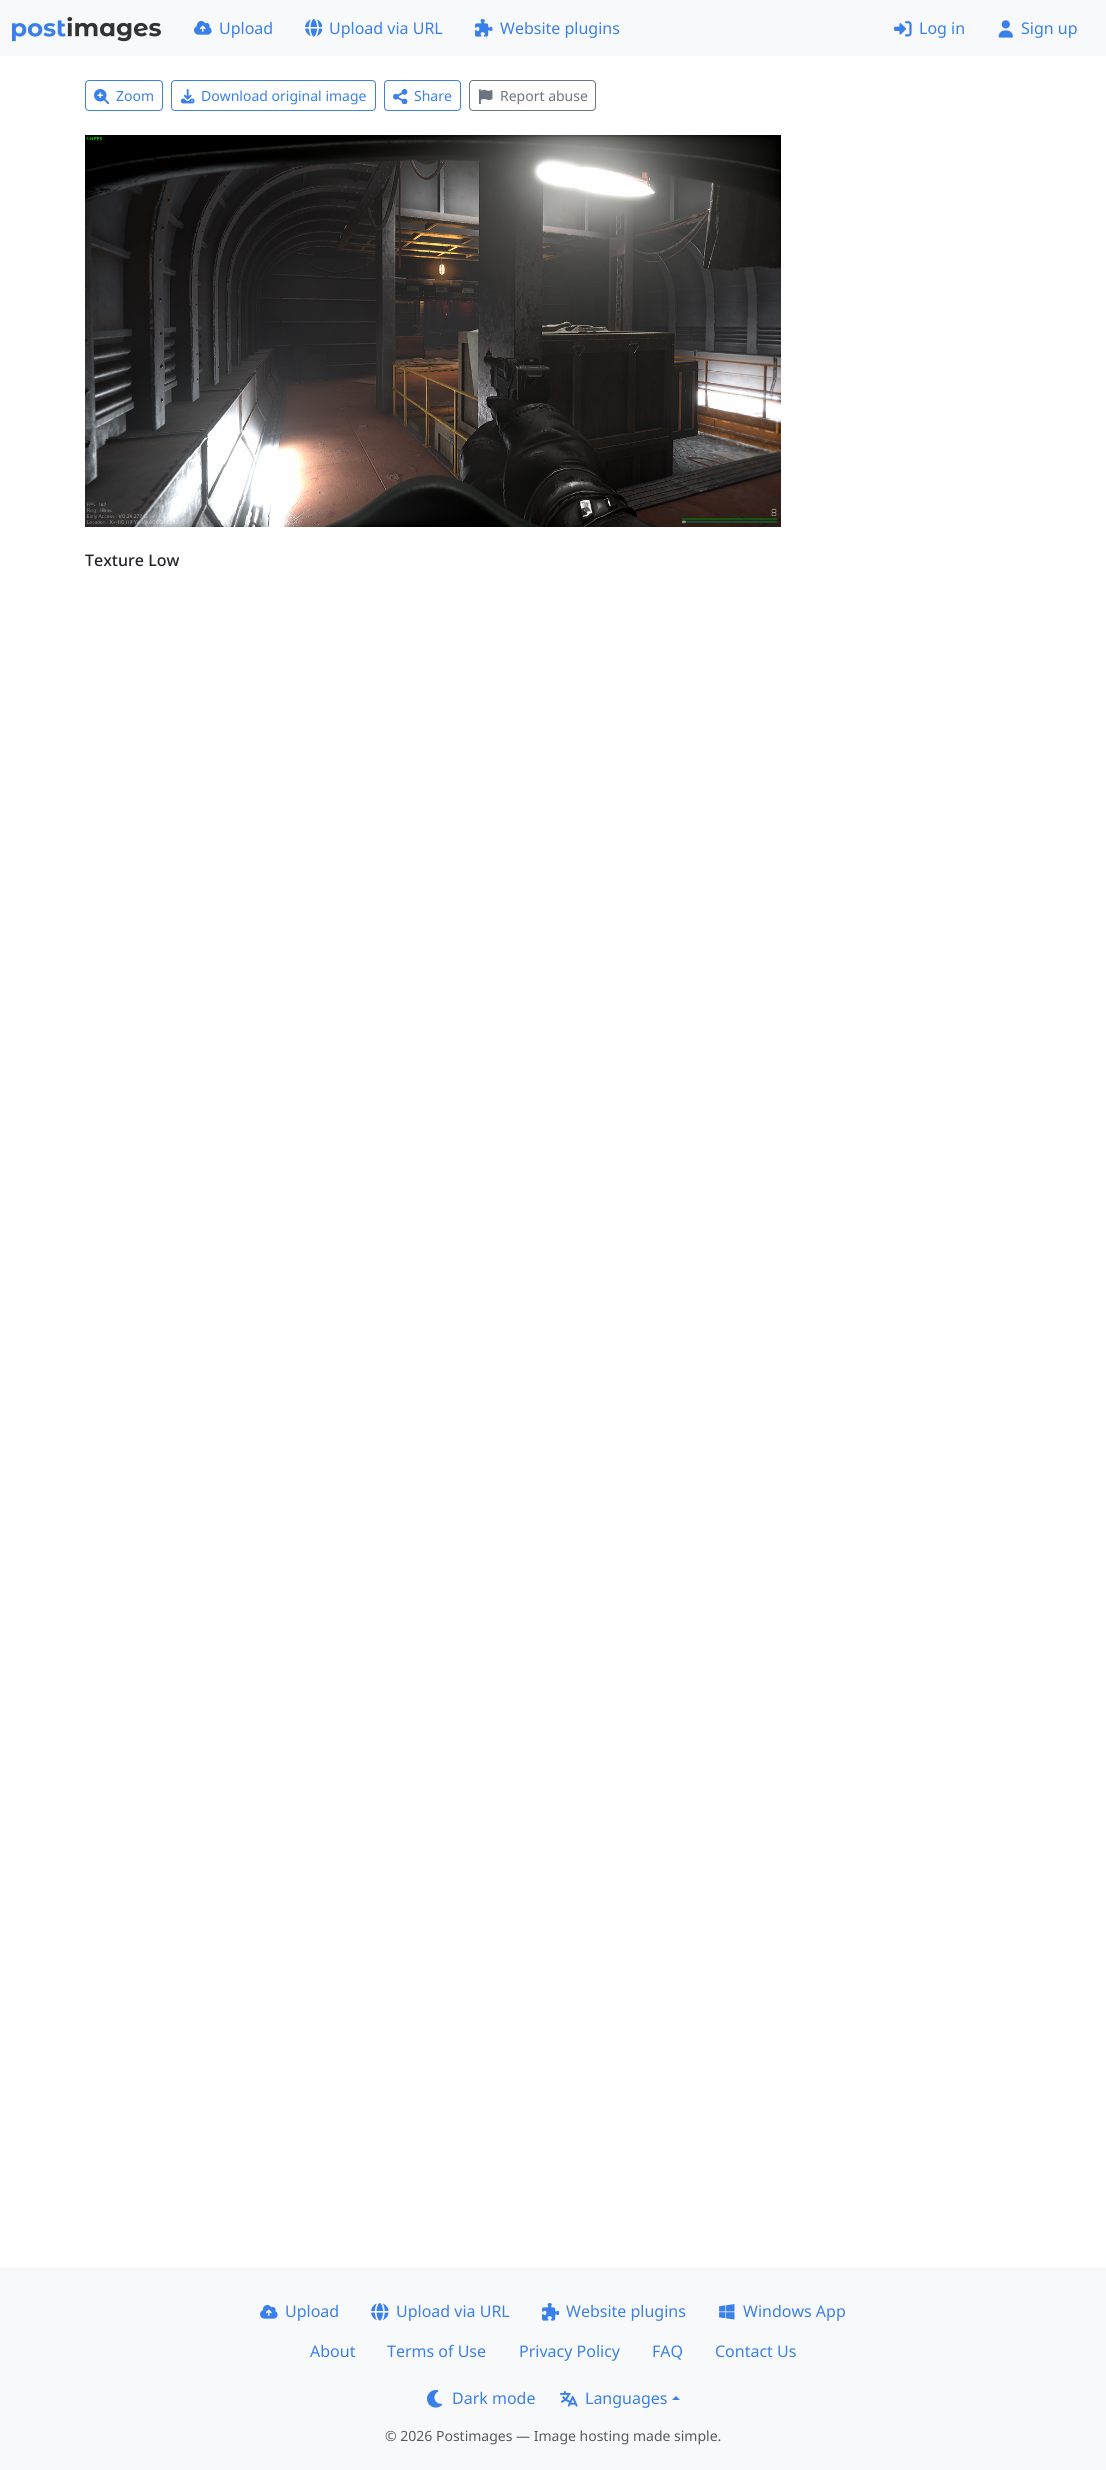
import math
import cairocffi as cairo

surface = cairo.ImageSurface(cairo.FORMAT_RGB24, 1106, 2470)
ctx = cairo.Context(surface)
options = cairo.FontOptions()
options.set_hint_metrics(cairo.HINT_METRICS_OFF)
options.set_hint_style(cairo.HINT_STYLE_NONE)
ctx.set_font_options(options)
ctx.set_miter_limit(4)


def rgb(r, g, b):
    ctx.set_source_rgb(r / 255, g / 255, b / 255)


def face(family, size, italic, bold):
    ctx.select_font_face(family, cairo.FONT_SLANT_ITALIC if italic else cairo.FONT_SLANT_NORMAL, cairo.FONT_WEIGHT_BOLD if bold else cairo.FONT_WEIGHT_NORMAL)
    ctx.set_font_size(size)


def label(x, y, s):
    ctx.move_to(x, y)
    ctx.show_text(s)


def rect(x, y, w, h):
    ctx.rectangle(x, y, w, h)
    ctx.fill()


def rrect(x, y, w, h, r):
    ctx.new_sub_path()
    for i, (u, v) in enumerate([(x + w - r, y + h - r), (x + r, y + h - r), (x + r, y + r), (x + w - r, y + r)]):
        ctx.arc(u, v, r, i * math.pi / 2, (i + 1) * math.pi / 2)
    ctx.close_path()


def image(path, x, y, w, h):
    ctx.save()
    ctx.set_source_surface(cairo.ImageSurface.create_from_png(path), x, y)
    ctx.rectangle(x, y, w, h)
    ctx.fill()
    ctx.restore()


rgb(255, 255, 255)
ctx.paint()
rgb(248, 249, 250)
rect(0, 0, 1106, 56)
image('image0.png', 12, 17, 149, 25)
image('image1.png', 194, 21, 18, 14)
face('Noto Sans', 16, 0, 0)
rgb(58, 128, 234)
label(219, 34, 'Upload')
image('image2.png', 305, 19, 17, 18)
label(329, 34, 'Upload via URL')
image('image3.png', 475, 19, 18, 18)
label(500, 34, 'Website plugins')
image('image4.png', 894, 21, 18, 16)
label(919, 34, 'Log in')
image('image5.png', 998, 20, 15, 18)
label(1021, 34, 'Sign up')
rrect(85.5, 80.5, 77, 30, 3.5)
ctx.set_line_width(1)
ctx.stroke()
image('image6.png', 94, 89, 15, 15)
face('Noto Sans', 14, 0, 0)
label(116, 101, 'Zoom')
rrect(171.5, 80.5, 204, 30, 3.5)
ctx.stroke()
image('image7.png', 180, 89, 15, 15)
label(201, 101, 'Download original image')
rrect(384.5, 80.5, 76, 30, 3.5)
ctx.stroke()
image('image8.png', 393, 89, 15, 15)
label(414, 101, 'Share')
rrect(469.5, 80.5, 126, 30, 3.5)
rgb(108, 117, 125)
ctx.stroke()
image('image9.png', 478, 89, 15, 15)
label(500, 101, 'Report abuse')
image('image10.png', 85, 135, 696, 392)
face('Noto Sans Medium', 16, 0, 0)
rgb(33, 37, 41)
label(85, 566, 'Texture Low')
rgb(248, 249, 250)
rect(0, 2267, 1106, 203)
image('image1.png', 260, 2305, 18, 14)
face('Noto Sans', 16, 0, 0)
rgb(58, 128, 234)
label(285, 2317, 'Upload')
image('image11.png', 371, 2303, 18, 18)
label(396, 2317, 'Upload via URL')
image('image12.png', 542, 2303, 17, 18)
label(566, 2317, 'Website plugins')
image('image13.png', 719, 2304, 16, 16)
label(743, 2317, 'Windows App')
label(310, 2357, 'About')
label(387, 2357, 'Terms of Use')
label(519, 2357, 'Privacy Policy')
label(652, 2357, 'FAQ')
label(715, 2357, 'Contact Us')
image('image14.png', 427, 2390, 16, 18)
label(452, 2404, 'Dark mode')
image('image15.png', 560, 2391, 18, 16)
label(585, 2404, 'Languages')
ctx.new_path()
ctx.move_to(680, 2400)
ctx.line_to(672, 2400)
ctx.line_to(676, 2396)
ctx.close_path()
ctx.fill()
face('Noto Sans', 14, 0, 0)
rgb(87, 90, 93)
label(385, 2441, '© 2026 Postimages — Image hosting made simple.')
surface.write_to_png('render.png')
